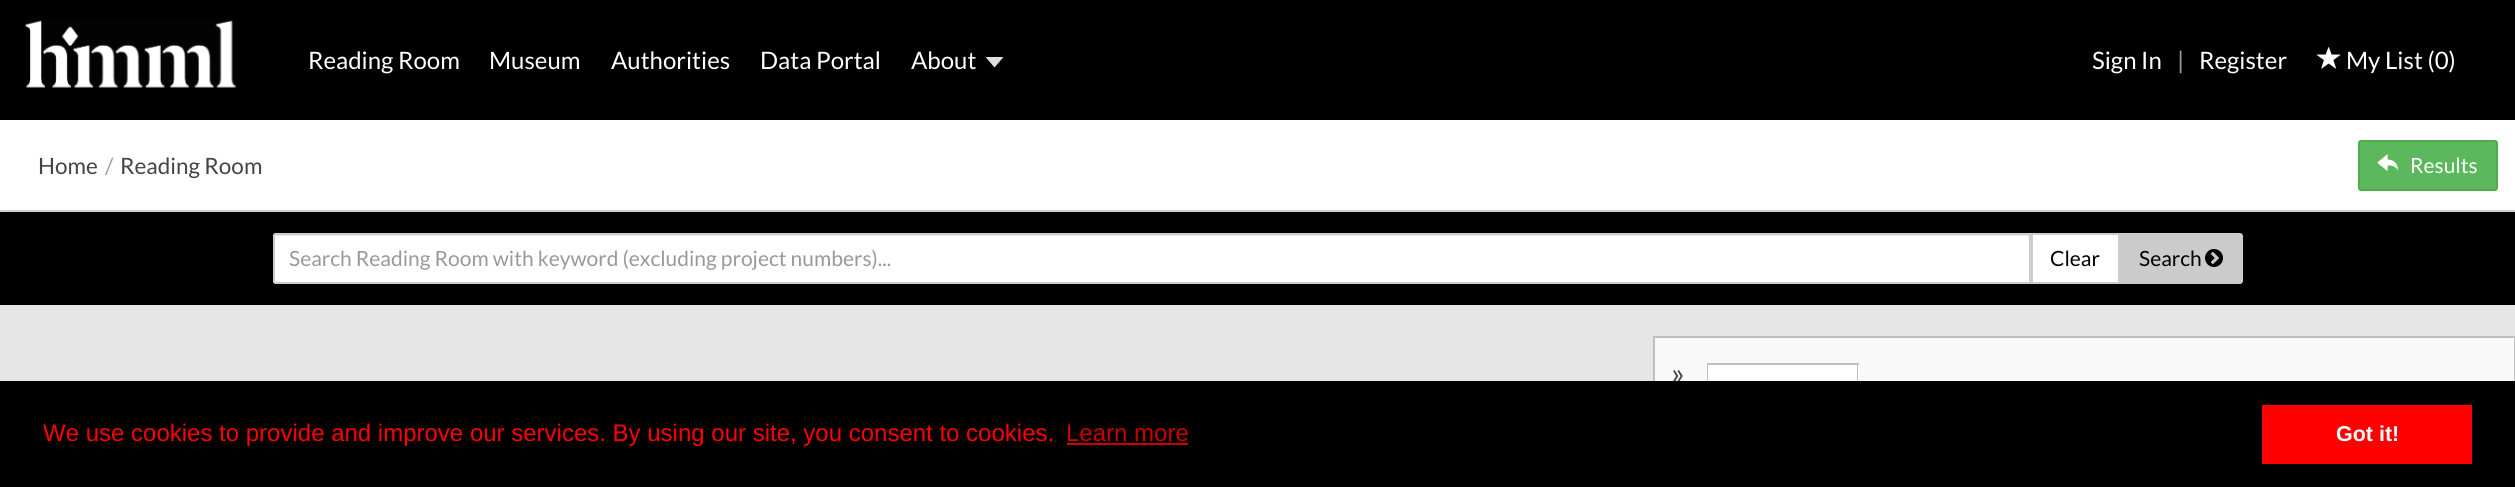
import math
import cairocffi as cairo

surface = cairo.ImageSurface(cairo.FORMAT_RGB24, 2515, 487)
ctx = cairo.Context(surface)
options = cairo.FontOptions()
options.set_hint_metrics(cairo.HINT_METRICS_OFF)
options.set_hint_style(cairo.HINT_STYLE_NONE)
ctx.set_font_options(options)
ctx.set_miter_limit(4)


def rgb(r, g, b):
    ctx.set_source_rgb(r / 255, g / 255, b / 255)


def face(family, size, italic, bold):
    ctx.select_font_face(family, cairo.FONT_SLANT_ITALIC if italic else cairo.FONT_SLANT_NORMAL, cairo.FONT_WEIGHT_BOLD if bold else cairo.FONT_WEIGHT_NORMAL)
    ctx.set_font_size(size)


def label(x, y, s):
    ctx.move_to(x, y)
    ctx.show_text(s)


def rect(x, y, w, h):
    ctx.rectangle(x, y, w, h)
    ctx.fill()


def rrect(x, y, w, h, r):
    ctx.new_sub_path()
    for i, (u, v) in enumerate([(x + w - r, y + h - r), (x + r, y + h - r), (x + r, y + r), (x + w - r, y + r)]):
        ctx.arc(u, v, r, i * math.pi / 2, (i + 1) * math.pi / 2)
    ctx.close_path()


def soft_shadow(x, y, w, h, r, blur, alpha):
    ctx.push_group_with_content(cairo.CONTENT_ALPHA)
    ctx.set_operator(cairo.OPERATOR_SOURCE)
    for i in range(15, -16, -2):
        e = blur * i / 6
        if min(w, h) + 2 * e > 0:
            ctx.set_source_rgba(0, 0, 0, alpha * math.erfc((i - 1) / 8.5) / 2)
            rrect(x - e, y - e, w + 2 * e, h + 2 * e, max(0, min(r + e + blur * .6, min(w, h) / 2 + e)))
            ctx.fill()
    ctx.mask(ctx.pop_group())


def image(path, x, y, w, h):
    ctx.save()
    ctx.set_source_surface(cairo.ImageSurface.create_from_png(path), x, y)
    ctx.rectangle(x, y, w, h)
    ctx.fill()
    ctx.restore()


rgb(230, 230, 230)
ctx.paint()
rgb(0, 0, 0)
rect(0, 0, 2515, 120)
image('image0.png', 25, 20, 212, 68)
face('Lato', 24, 0, 0)
rgb(255, 255, 255)
label(308, 69, 'Reading Room')
label(489, 69, 'Museum')
label(611, 69, 'Authorities')
label(760, 69, 'Data Portal')
label(911, 69, 'About')
rgb(224, 224, 224)
ctx.new_path()
ctx.move_to(985.5, 57)
ctx.line_to(1003.5, 57)
ctx.line_to(994.5, 67.5)
ctx.close_path()
ctx.fill()
rgb(255, 255, 255)
label(2092, 69, 'Sign In')
rgb(160, 160, 160)
label(2177, 69, '|')
rgb(255, 255, 255)
label(2199, 69, 'Register')
image('image1.png', 2316, 47, 25, 22)
label(2346, 69, 'My List (0)')
rgb(0, 0, 0)
rect(0, 212, 2515, 93)
rgb(0, 0, 0)
soft_shadow(0, 123, 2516, 90, 0, 1, 0.1)
rgb(255, 255, 255)
rect(0, 120, 2515, 90)
face('Lato', 22.5, 0, 0)
rgb(68, 68, 68)
label(38, 174, 'Home')
rgb(160, 160, 160)
label(105, 174, '/')
rgb(68, 68, 68)
label(120, 174, 'Reading Room')
rgb(92, 184, 92)
rrect(2359, 141, 138, 49, 2)
ctx.fill_preserve()
rgb(76, 174, 76)
ctx.stroke()
image('image2.png', 2377, 154, 22, 17)
face('Lato', 21, 0, 0)
rgb(255, 255, 255)
label(2410, 173, 'Results')
ctx.new_path()
ctx.move_to(276, 233)
ctx.line_to(2031, 233)
ctx.line_to(2031, 284)
ctx.line_to(276, 284)
ctx.curve_to(274.5, 284, 273, 282.5, 273, 281)
ctx.line_to(273, 236)
ctx.curve_to(273, 234.5, 274.5, 233, 276, 233)
ctx.close_path()
ctx.fill()
rgb(236, 236, 236)
ctx.new_path()
ctx.move_to(276, 236)
ctx.line_to(2030, 236)
ctx.line_to(2030, 234)
ctx.line_to(276, 234)
ctx.curve_to(275, 234, 275, 235, 275, 236)
ctx.close_path()
ctx.fill()
ctx.new_path()
ctx.move_to(276, 234)
ctx.line_to(2030, 234)
ctx.line_to(2030, 283)
ctx.line_to(276, 283)
ctx.curve_to(275, 283, 274, 282, 274, 281)
ctx.line_to(274, 236)
ctx.curve_to(274, 235, 275, 234, 276, 234)
ctx.close_path()
rgb(204, 204, 204)
ctx.stroke()
rgb(153, 153, 153)
label(289, 266, 'Search Reading Room with keyword (excluding project numbers)...')
rgb(255, 255, 255)
ctx.rectangle(2032, 234, 87, 49)
ctx.fill_preserve()
rgb(204, 204, 204)
ctx.stroke()
rgb(0, 0, 0)
label(2050, 266, 'Clear')
rgb(203, 203, 203)
ctx.new_path()
ctx.move_to(2121, 234)
ctx.line_to(2240, 234)
ctx.curve_to(2241, 234, 2242, 235, 2242, 236)
ctx.line_to(2242, 281)
ctx.curve_to(2242, 282, 2241, 283, 2240, 283)
ctx.line_to(2121, 283)
ctx.close_path()
ctx.fill_preserve()
ctx.stroke()
rgb(0, 0, 0)
label(2139, 266, 'Search')
image('image3.png', 2205, 249, 18, 18)
rgb(249, 249, 249)
rect(1655, 338, 859, 43)
ctx.rectangle(1654, 337, 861, 79)
rgb(192, 192, 192)
ctx.stroke()
rgb(255, 255, 255)
rect(1708, 365, 151, 16)
rgb(192, 192, 192)
rect(1707, 363, 152, 2)
ctx.new_path()
ctx.move_to(1858, 363)
ctx.line_to(1858, 417)
ctx.line_to(1857, 416)
ctx.line_to(1857, 364)
ctx.close_path()
ctx.fill()
ctx.new_path()
ctx.move_to(1707, 417)
ctx.line_to(1707, 363)
ctx.line_to(1708, 364)
ctx.line_to(1708, 416)
ctx.close_path()
ctx.fill()
face('Lato', 30, 0, 0)
rgb(68, 68, 68)
label(1671, 384, '»')
rgb(0, 0, 0)
rect(0, 381, 2515, 106)
face('Liberation Sans', 24, 0, 0)
rgb(255, 0, 0)
label(43, 441, 'We use cookies to provide and improve our services. By using our site, you consent to cookies.')
rgb(204, 0, 0)
label(1066, 441, 'Learn more')
rect(1067, 443, 121, 2)
rgb(255, 0, 0)
rect(2262, 405, 210, 59)
face('Liberation Sans', 21.5, 0, 1)
rgb(255, 255, 255)
label(2336, 441, 'Got it!')
surface.write_to_png('render.png')
